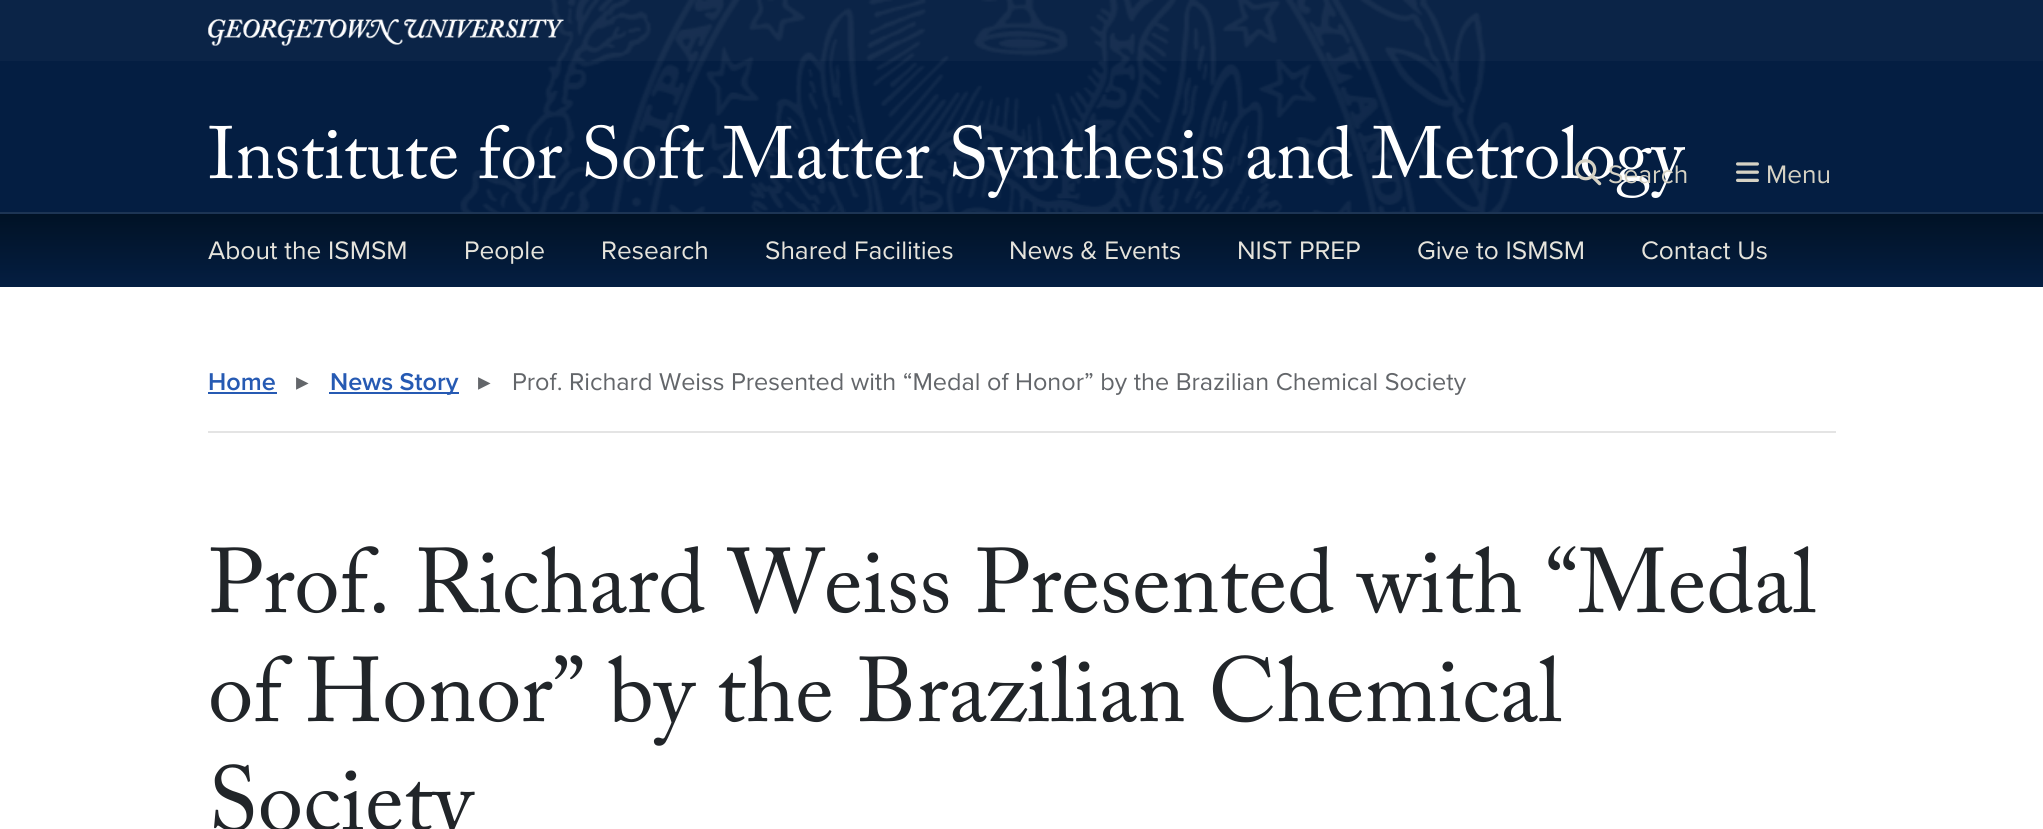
import math
import cairocffi as cairo

surface = cairo.ImageSurface(cairo.FORMAT_RGB24, 2043, 829)
ctx = cairo.Context(surface)
options = cairo.FontOptions()
options.set_hint_metrics(cairo.HINT_METRICS_OFF)
options.set_hint_style(cairo.HINT_STYLE_NONE)
ctx.set_font_options(options)
ctx.set_miter_limit(4)


def rgb(r, g, b):
    ctx.set_source_rgb(r / 255, g / 255, b / 255)


def face(family, size, italic, bold):
    ctx.select_font_face(family, cairo.FONT_SLANT_ITALIC if italic else cairo.FONT_SLANT_NORMAL, cairo.FONT_WEIGHT_BOLD if bold else cairo.FONT_WEIGHT_NORMAL)
    ctx.set_font_size(size)


def label(x, y, s):
    ctx.move_to(x, y)
    ctx.show_text(s)


def rect(x, y, w, h):
    ctx.rectangle(x, y, w, h)
    ctx.fill()


def image(path, x, y, w, h):
    ctx.save()
    ctx.set_source_surface(cairo.ImageSurface.create_from_png(path), x, y)
    ctx.rectangle(x, y, w, h)
    ctx.fill()
    ctx.restore()


rgb(255, 255, 255)
ctx.paint()
rgb(4, 30, 66)
rect(0, 0, 2043, 212)
image('image0.png', 460, 0, 1055, 212)
ctx.set_source_rgba(1, 1, 1, 0.03)
rect(0, 0, 2043, 61)
image('image1.png', 208, 19, 356, 27)
face('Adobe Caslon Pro', 73.5, 0, 0)
rgb(255, 255, 255)
label(208, 178, 'Institute for Soft Matter Synthesis and Metrology')
image('image2.png', 1575, 159, 27, 27)
face('Proxima Nova', 26.25, 0, 0)
rgb(214, 210, 196)
label(1608, 183, 'Search')
image('image3.png', 1736, 162, 23, 20)
label(1766, 183, 'Menu')
gradient = cairo.LinearGradient(1022, 213, 1022, 287)
gradient.add_color_stop_rgba(0, 0.004, 0.071, 0.145, 1)
gradient.add_color_stop_rgba(1, 0.016, 0.118, 0.259, 1)
ctx.set_source(gradient)
rect(0, 214, 2043, 73)
rgb(29, 53, 84)
rect(0, 212, 2043, 2)
rgb(230, 228, 220)
label(208, 259, 'About the ISMSM')
label(464, 259, 'People')
label(601, 259, 'Research')
label(765, 259, 'Shared Facilities')
label(1009, 259, 'News & Events')
label(1237, 259, 'NIST PREP')
label(1417, 259, 'Give to ISMSM')
label(1641, 259, 'Contact Us')
rgb(228, 228, 228)
rect(208, 431, 1628, 2)
face('Proxima Nova SemiBold', 25.2, 0, 0)
rgb(38, 90, 179)
label(208, 390, 'Home')
rect(208, 392, 69, 2)
face('DejaVu Sans', 25.2, 0, 0)
rgb(99, 102, 106)
label(296, 390, '▸')
rgb(38, 90, 179)
rect(329, 392, 130, 2)
face('Proxima Nova SemiBold', 25.2, 0, 0)
label(330, 390, 'News Story')
face('DejaVu Sans', 25.2, 0, 0)
rgb(99, 102, 106)
label(478, 390, '▸')
face('Proxima Nova', 25.2, 0, 0)
label(512, 390, 'Prof. Richard Weiss Presented with “Medal of Honor” by the Brazilian Chemical Society')
face('Adobe Caslon Pro', 91, 0, 0)
rgb(33, 37, 41)
label(208, 612, 'Prof. Richard Weiss Presented with “Medal')
label(208, 721, 'of Honor” by the Brazilian Chemical')
label(208, 830, 'Society')
surface.write_to_png('render.png')
